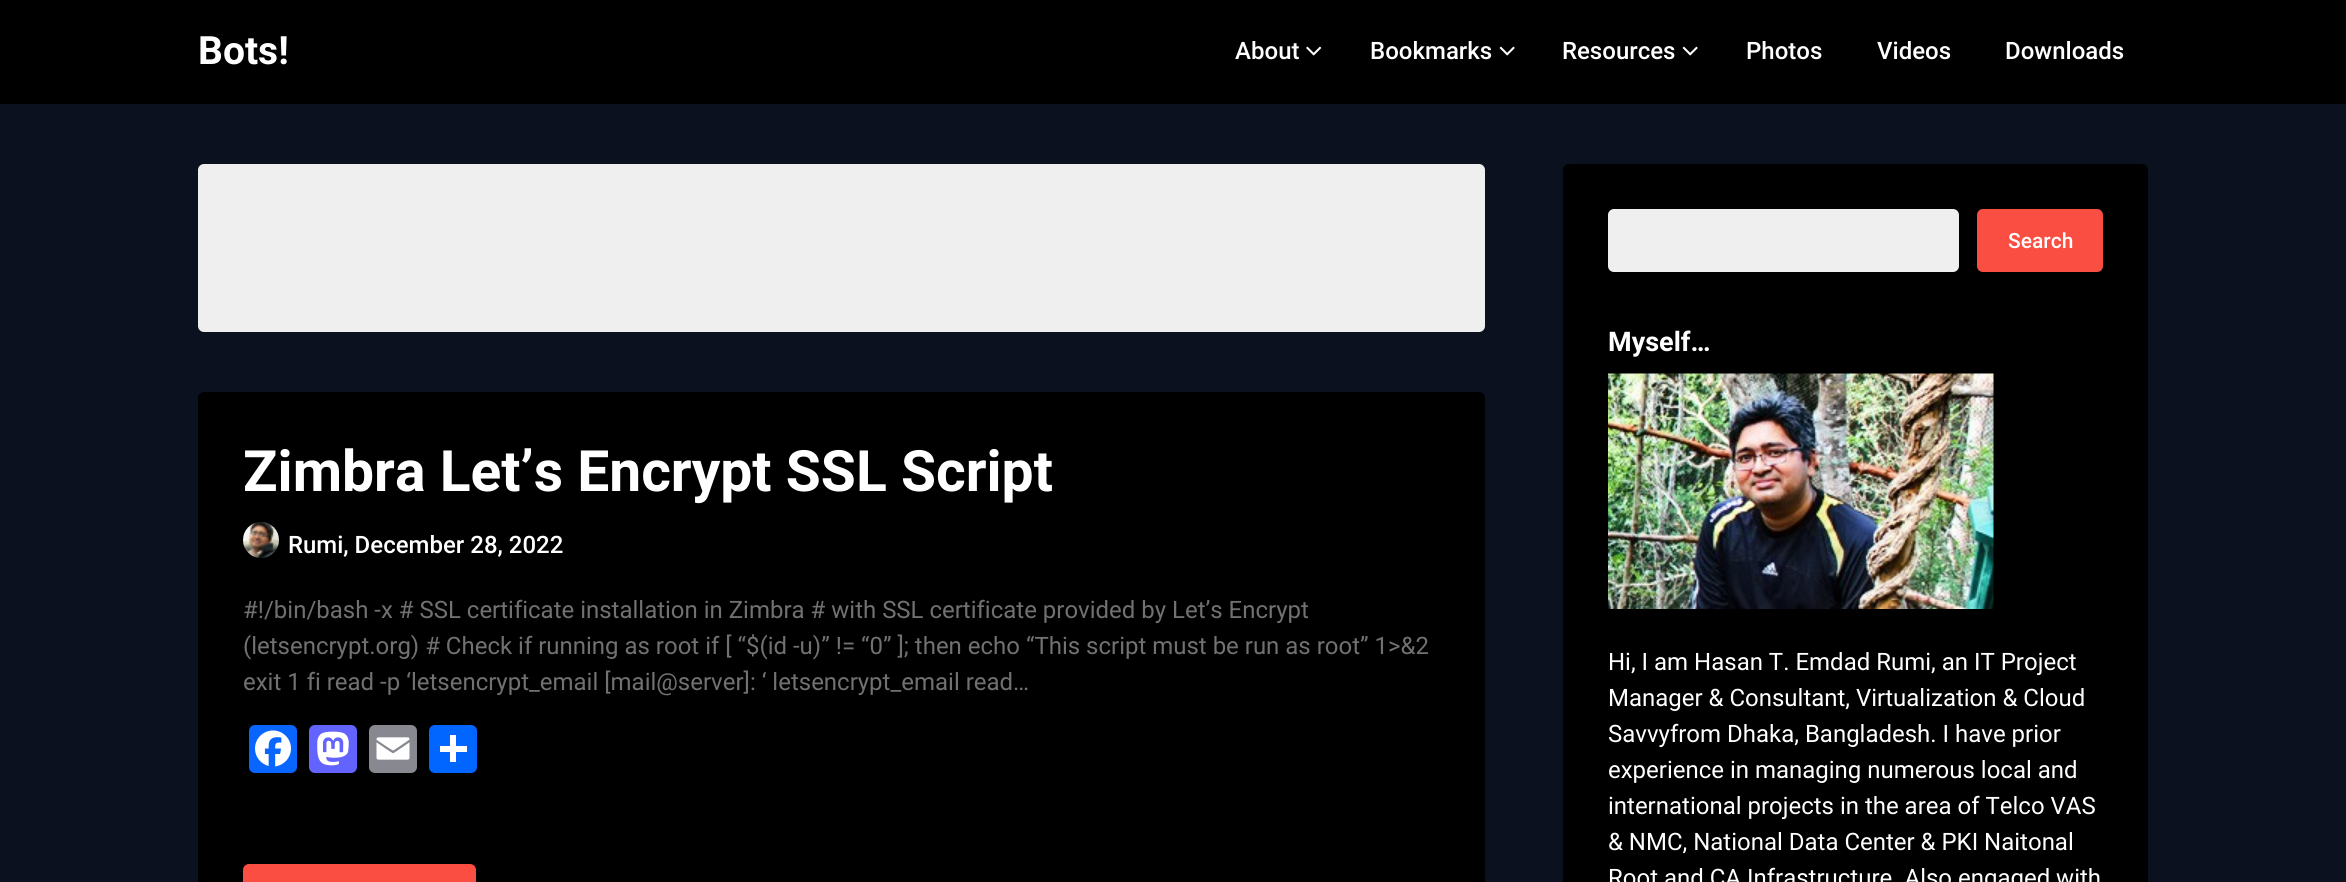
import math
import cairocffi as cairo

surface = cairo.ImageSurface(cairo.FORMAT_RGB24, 2346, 882)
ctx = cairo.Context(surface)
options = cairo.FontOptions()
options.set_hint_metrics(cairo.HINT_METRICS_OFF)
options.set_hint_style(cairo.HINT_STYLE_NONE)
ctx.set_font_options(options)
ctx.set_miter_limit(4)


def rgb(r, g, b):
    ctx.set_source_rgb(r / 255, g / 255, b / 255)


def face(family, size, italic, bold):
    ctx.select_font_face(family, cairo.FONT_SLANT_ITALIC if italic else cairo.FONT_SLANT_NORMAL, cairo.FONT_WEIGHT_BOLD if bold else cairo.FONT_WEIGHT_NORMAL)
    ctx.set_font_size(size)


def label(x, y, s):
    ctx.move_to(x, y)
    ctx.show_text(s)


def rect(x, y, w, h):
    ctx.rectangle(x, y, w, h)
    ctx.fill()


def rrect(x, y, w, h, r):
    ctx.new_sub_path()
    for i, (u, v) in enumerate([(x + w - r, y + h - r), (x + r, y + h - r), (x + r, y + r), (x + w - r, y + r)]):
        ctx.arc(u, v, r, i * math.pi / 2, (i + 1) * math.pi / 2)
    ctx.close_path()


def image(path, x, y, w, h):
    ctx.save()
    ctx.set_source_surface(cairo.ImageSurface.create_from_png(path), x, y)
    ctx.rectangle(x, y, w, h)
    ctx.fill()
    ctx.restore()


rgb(11, 17, 30)
ctx.paint()
rgb(0, 0, 0)
rect(0, 0, 2346, 104)
face('Roboto', 39, 0, 1)
rgb(255, 255, 255)
label(198, 64, 'Bots!')
face('Roboto Medium', 24, 0, 0)
label(1235, 59, 'About')
image('image0.png', 1306, 46, 16, 10)
label(1370, 59, 'Bookmarks')
image('image1.png', 1499, 46, 16, 10)
label(1562, 59, 'Resources')
image('image1.png', 1682, 46, 16, 10)
label(1746, 59, 'Photos')
label(1877, 59, 'Videos')
label(2005, 59, 'Downloads')
rgb(239, 239, 239)
rrect(198, 164, 1287, 168, 6)
ctx.fill()
rgb(0, 0, 0)
rrect(198, 392, 1287, 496, 6)
ctx.fill()
face('Roboto', 57, 0, 1)
rgb(255, 255, 255)
label(243, 491, 'Zimbra Let’s Encrypt SSL Script')
image('image2.png', 243, 522, 36, 36)
face('Roboto Medium', 24, 0, 0)
label(288, 553, 'Rumi, December 28, 2022')
face('Roboto', 24, 0, 0)
rgb(113, 113, 113)
label(243, 618, '#!/bin/bash -x # SSL certificate installation in Zimbra # with SSL certificate provided by Let’s Encrypt')
label(243, 654, '(letsencrypt.org) # Check if running as root if [ “$(id -u)” != “0” ]; then echo “This script must be run as root” 1>&2')
label(243, 690, 'exit 1 fi read -p ‘letsencrypt_email [mail@server]: ‘ letsencrypt_email read…')
rgb(8, 102, 255)
rrect(249, 725, 48, 48, 6)
ctx.fill()
image('image3.png', 255, 730, 36, 37)
rgb(99, 100, 255)
rrect(309, 725, 48, 48, 6)
ctx.fill()
image('image4.png', 317, 731, 32, 35)
rgb(136, 137, 144)
rrect(369, 725, 48, 48, 6)
ctx.fill()
image('image5.png', 376, 737, 34, 23)
rgb(1, 102, 255)
rrect(429, 725, 48, 48, 6)
ctx.fill()
rgb(255, 255, 255)
rect(450, 735, 6, 27)
rect(440, 746, 27, 6)
rgb(249, 78, 65)
rrect(243, 864, 233, 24, 6)
ctx.fill()
rgb(0, 0, 0)
rrect(1563, 164, 585, 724, 6)
ctx.fill()
rgb(239, 239, 239)
rrect(1608, 209, 351, 63, 6)
ctx.fill()
rgb(249, 78, 65)
rrect(1977, 209, 126, 63, 6)
ctx.fill()
face('Roboto Medium', 21, 0, 0)
rgb(255, 255, 255)
label(2008, 248, 'Search')
face('Roboto', 27, 0, 1)
label(1608, 351, 'Myself…')
image('image6.png', 1608, 373, 386, 236)
face('Roboto', 24, 0, 0)
label(1608, 670, 'Hi, I am Hasan T. Emdad Rumi, an IT Project')
label(1608, 706, 'Manager & Consultant, Virtualization & Cloud')
label(1608, 742, 'Savvyfrom Dhaka, Bangladesh. I have prior')
label(1608, 778, 'experience in managing numerous local and')
label(1608, 814, 'international projects in the area of Telco VAS')
label(1608, 850, '& NMC, National Data Center & PKI Naitonal')
label(1608, 886, 'Root and CA Infrastructure. Also engaged with')
surface.write_to_png('render.png')
